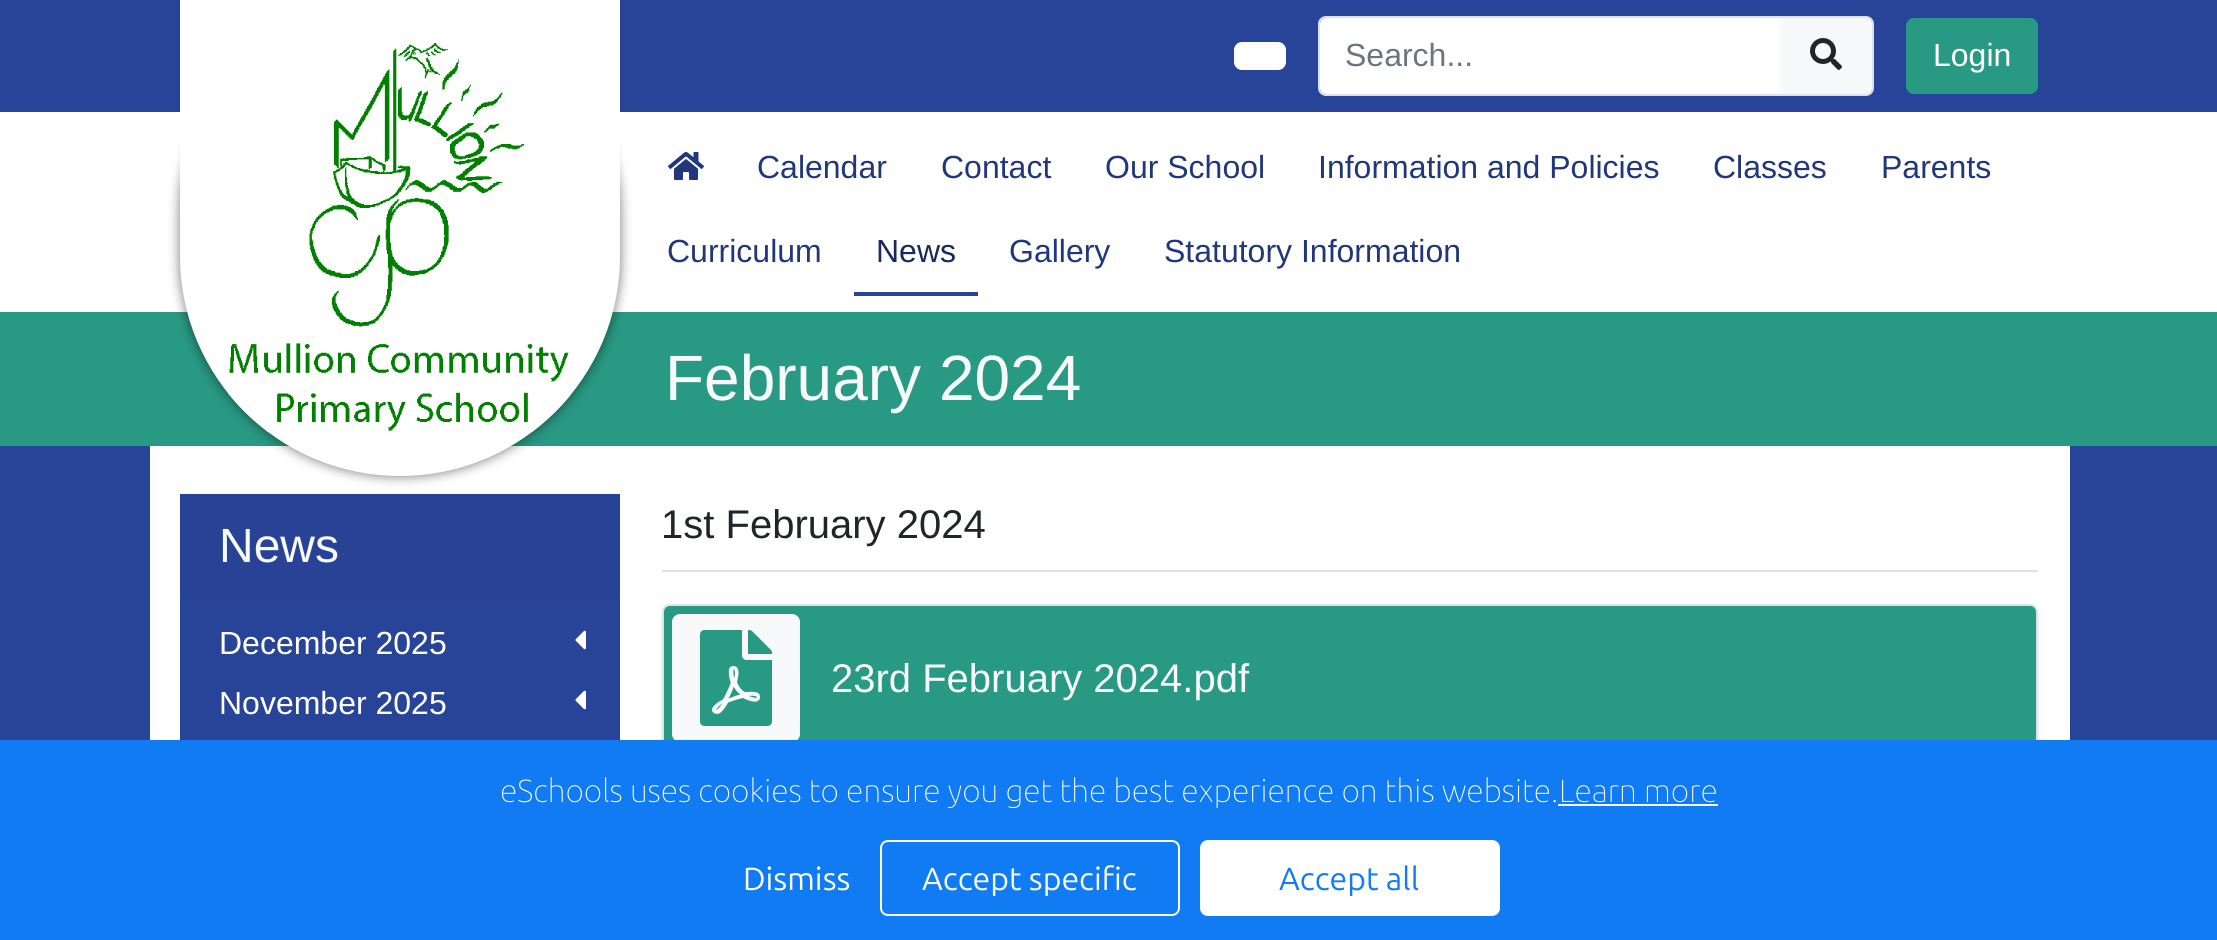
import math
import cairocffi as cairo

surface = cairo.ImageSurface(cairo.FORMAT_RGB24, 2217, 940)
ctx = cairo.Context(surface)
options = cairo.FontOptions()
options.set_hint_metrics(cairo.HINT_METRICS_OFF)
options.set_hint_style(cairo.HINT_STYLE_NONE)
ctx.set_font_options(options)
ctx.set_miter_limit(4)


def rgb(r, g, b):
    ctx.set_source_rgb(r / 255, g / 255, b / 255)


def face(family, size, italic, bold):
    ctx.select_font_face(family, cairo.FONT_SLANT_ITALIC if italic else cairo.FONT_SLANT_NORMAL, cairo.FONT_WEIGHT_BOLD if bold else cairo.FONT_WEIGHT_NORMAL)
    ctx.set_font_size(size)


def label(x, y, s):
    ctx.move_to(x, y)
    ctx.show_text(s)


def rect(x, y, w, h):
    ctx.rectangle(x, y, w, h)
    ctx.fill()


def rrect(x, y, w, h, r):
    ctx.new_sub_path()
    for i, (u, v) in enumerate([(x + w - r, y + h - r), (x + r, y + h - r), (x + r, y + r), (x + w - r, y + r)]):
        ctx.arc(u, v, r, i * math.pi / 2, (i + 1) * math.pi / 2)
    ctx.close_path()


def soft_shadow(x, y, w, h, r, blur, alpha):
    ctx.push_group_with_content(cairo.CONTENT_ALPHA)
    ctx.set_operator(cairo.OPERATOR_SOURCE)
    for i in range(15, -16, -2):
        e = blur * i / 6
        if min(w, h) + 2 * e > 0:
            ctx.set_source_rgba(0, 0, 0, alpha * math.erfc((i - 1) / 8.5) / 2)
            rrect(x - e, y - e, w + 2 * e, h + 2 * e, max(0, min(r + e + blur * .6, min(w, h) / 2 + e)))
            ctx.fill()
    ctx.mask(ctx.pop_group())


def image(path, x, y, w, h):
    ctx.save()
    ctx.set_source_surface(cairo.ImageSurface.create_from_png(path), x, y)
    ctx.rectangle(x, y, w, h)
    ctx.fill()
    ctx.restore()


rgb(255, 255, 255)
ctx.paint()
rgb(40, 68, 153)
rect(0, 0, 2217, 112)
rgb(40, 153, 130)
rect(0, 312, 2217, 134)
rgb(40, 68, 153)
rect(0, 446, 2217, 294)
rgb(255, 255, 255)
rect(150, 446, 1920, 294)
rgb(0, 0, 0)
soft_shadow(178, -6, 444, 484, 222, 5, 0.4)
rgb(255, 255, 255)
ctx.new_path()
ctx.move_to(180, -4)
ctx.line_to(620, -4)
ctx.line_to(620, 256)
ctx.curve_to(620, 377.5, 521.5, 476, 400, 476)
ctx.curve_to(278.5, 476, 180, 377.5, 180, 256)
ctx.close_path()
ctx.fill()
image('image0.png', 228, 43, 342, 389)
rrect(1234, 42, 52, 28, 8)
ctx.fill()
rrect(1319, 17, 554, 78, 7)
rgb(222, 226, 230)
ctx.stroke()
rgb(255, 255, 255)
ctx.new_path()
ctx.move_to(1326, 18)
ctx.line_to(1782, 18)
ctx.line_to(1782, 94)
ctx.line_to(1326, 94)
ctx.curve_to(1322.5, 94, 1320, 91.5, 1320, 88)
ctx.line_to(1320, 24)
ctx.curve_to(1320, 20.5, 1322.5, 18, 1326, 18)
ctx.close_path()
ctx.fill()
face('Liberation Sans', 32, 0, 0)
rgb(108, 117, 125)
label(1345, 66, 'Search...')
rgb(248, 249, 250)
ctx.new_path()
ctx.move_to(1780, 18)
ctx.line_to(1866, 18)
ctx.curve_to(1869.5, 18, 1872, 20.5, 1872, 24)
ctx.line_to(1872, 88)
ctx.curve_to(1872, 91.5, 1869.5, 94, 1866, 94)
ctx.line_to(1780, 94)
ctx.close_path()
ctx.fill()
ctx.set_fill_rule(cairo.FILL_RULE_EVEN_ODD)
ctx.new_path()
ctx.move_to(1780, 18)
ctx.line_to(1780, 94)
ctx.line_to(1866, 94)
ctx.curve_to(1869, 94, 1872, 91, 1872, 88)
ctx.line_to(1872, 24)
ctx.curve_to(1872, 21, 1869, 18, 1866, 18)
ctx.close_path()
ctx.move_to(1782, 20)
ctx.line_to(1782, 92)
ctx.line_to(1870, 92)
ctx.line_to(1870, 20)
ctx.close_path()
ctx.fill()
image('image1.png', 1810, 38, 32, 32)
rgb(40, 153, 130)
rrect(1907, 19, 130, 74, 7)
ctx.fill_preserve()
ctx.stroke()
rgb(255, 255, 255)
label(1933, 66, 'Login')
image('image2.png', 668, 152, 36, 28)
rgb(32, 55, 123)
label(757, 178, 'Calendar')
label(941, 178, 'Contact')
label(1105, 178, 'Our School')
label(1318, 178, 'Information and Policies')
label(1713, 178, 'Classes')
label(1881, 178, 'Parents')
label(667, 262, 'Curriculum')
rgb(40, 68, 153)
rect(854, 292, 124, 4)
rgb(24, 41, 92)
label(876, 262, 'News')
rgb(32, 55, 123)
label(1009, 262, 'Gallery')
label(1164, 262, 'Statutory Information')
face('Liberation Sans', 64, 0, 0)
rgb(248, 249, 250)
label(665, 400, 'February 2024')
rgb(40, 67, 150)
rect(180, 494, 440, 106)
face('Liberation Sans', 48, 0, 0)
rgb(248, 249, 250)
label(219, 562, 'News')
rgb(40, 68, 153)
rect(180, 600, 440, 140)
face('Liberation Sans', 32, 0, 0)
rgb(255, 255, 255)
label(219, 654, 'December 2025')
image('image3.png', 575, 630, 11, 20)
label(219, 714, 'November 2025')
image('image3.png', 575, 690, 11, 20)
rgb(222, 226, 230)
rect(662, 570, 1376, 2)
face('Liberation Sans', 40, 0, 0)
rgb(33, 37, 41)
label(661, 538, '1st February 2024')
rgb(0, 0, 0)
soft_shadow(662, 608, 1376, 148, 8, 4, 0.07)
rgb(40, 153, 130)
rrect(663, 605, 1374, 146, 7)
ctx.fill_preserve()
rgb(222, 226, 230)
ctx.stroke()
rgb(248, 249, 250)
rrect(672, 614, 128, 128, 8)
ctx.fill()
image('image4.png', 700, 630, 72, 96)
label(831, 692, '23rd February 2024.pdf')
rgb(17, 123, 243)
rect(0, 740, 2217, 200)
face('Ubuntu Thin', 32, 0, 0)
rgb(255, 255, 255)
label(500, 802, 'eSchools uses cookies to ensure you get the best experience on this website.')
rgb(247, 247, 247)
rect(1558, 804, 160, 2)
rgb(248, 249, 250)
label(1559, 802, 'Learn more')
face('Ubuntu', 32, 0, 0)
rgb(255, 255, 255)
label(743, 890, 'Dismiss')
rrect(881, 841, 298, 74, 7)
ctx.stroke()
rgb(248, 249, 250)
label(922, 890, 'Accept specific')
rgb(255, 255, 255)
rrect(1201, 841, 298, 74, 7)
ctx.fill_preserve()
ctx.stroke()
rgb(17, 123, 243)
label(1279, 890, 'Accept all')
surface.write_to_png('render.png')
